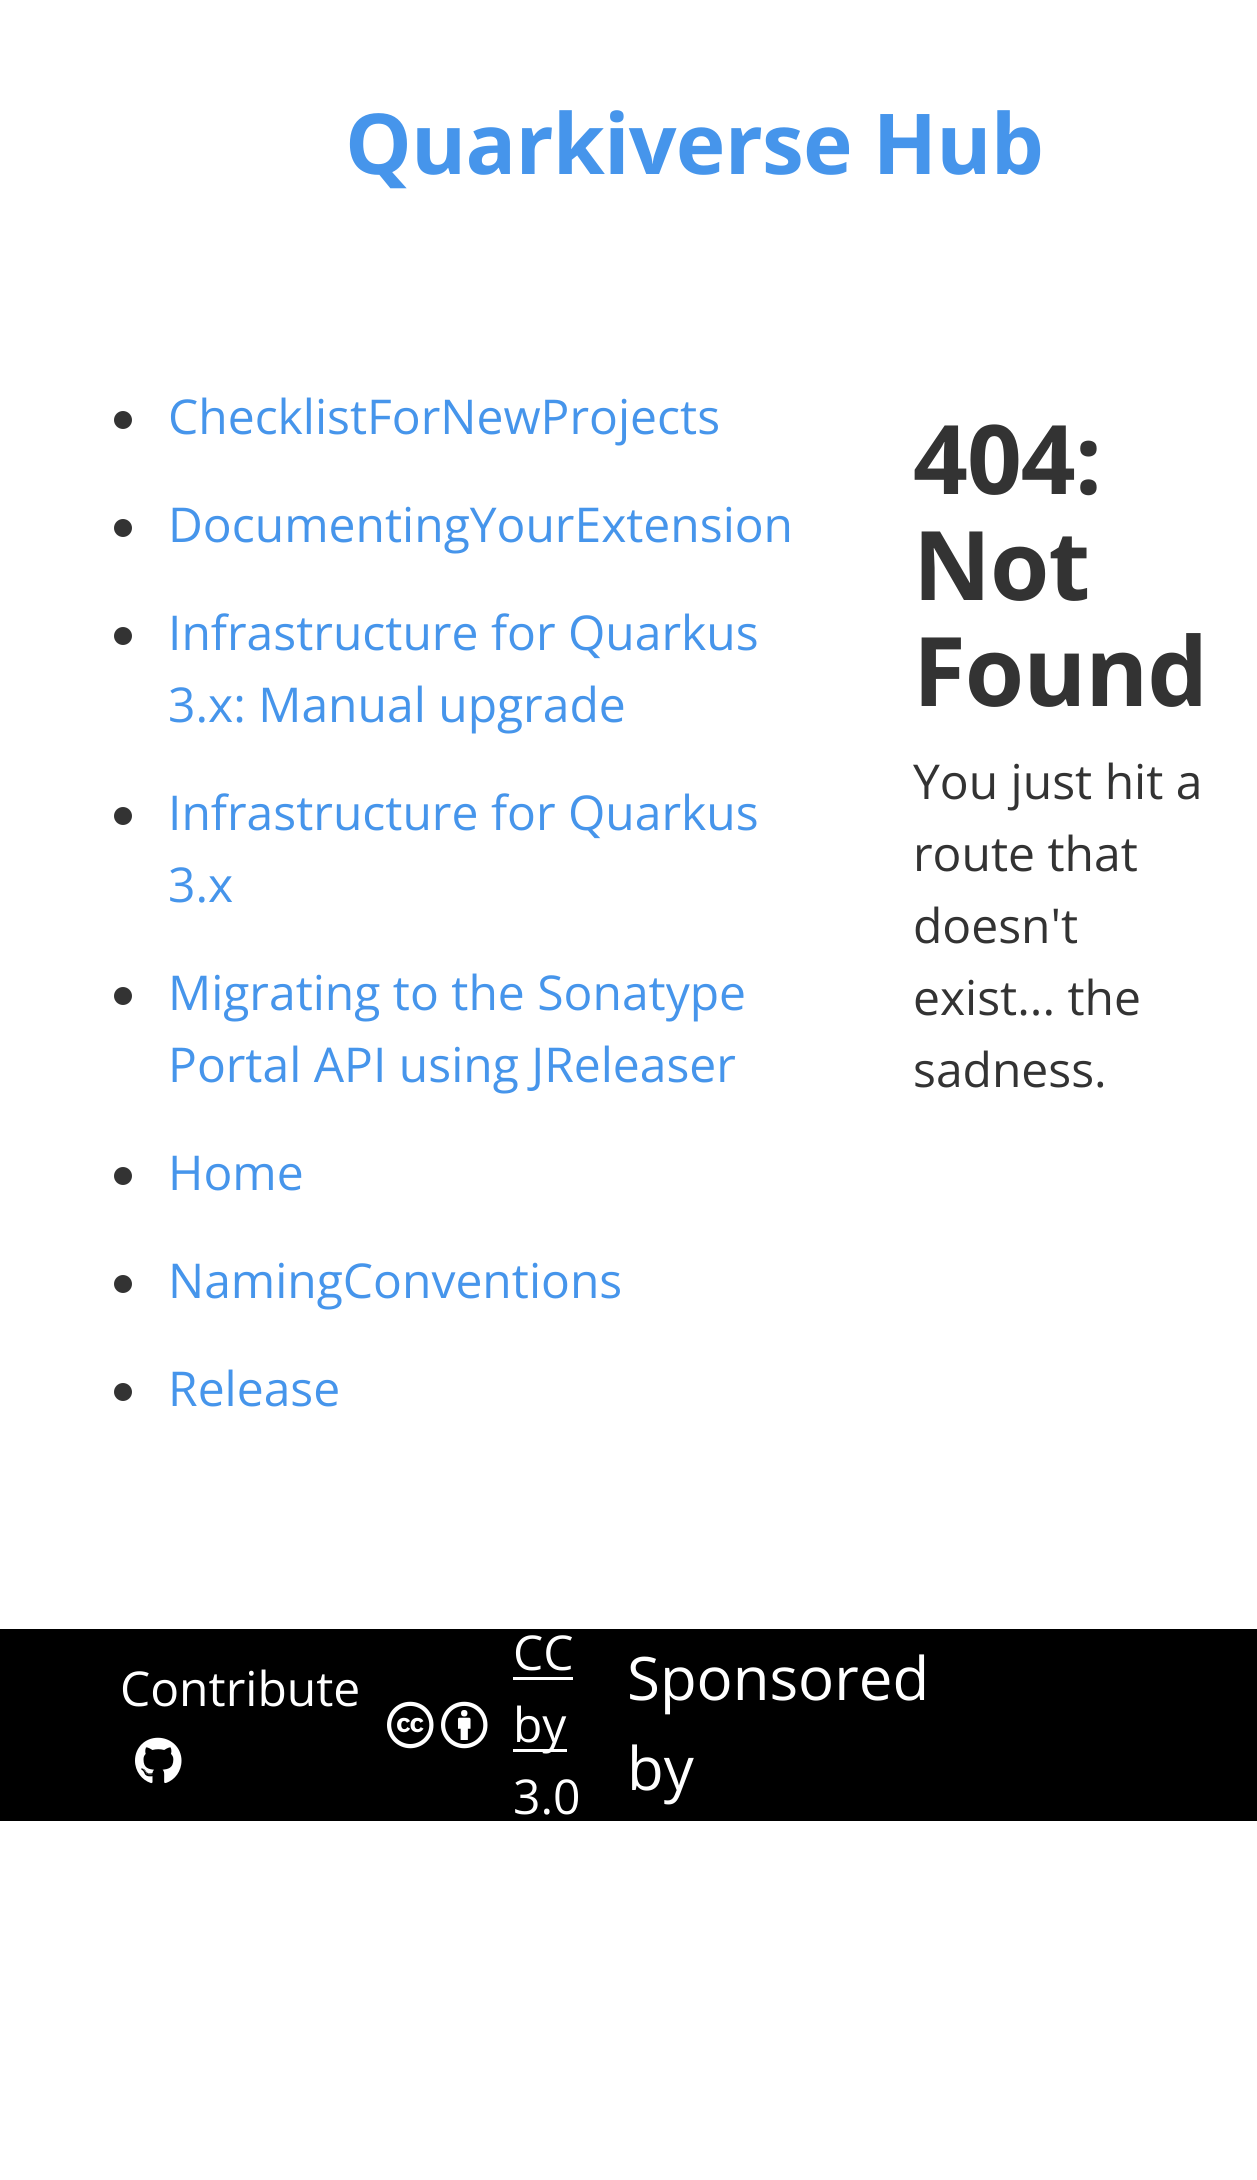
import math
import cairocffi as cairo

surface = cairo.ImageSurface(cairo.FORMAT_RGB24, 1257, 2180)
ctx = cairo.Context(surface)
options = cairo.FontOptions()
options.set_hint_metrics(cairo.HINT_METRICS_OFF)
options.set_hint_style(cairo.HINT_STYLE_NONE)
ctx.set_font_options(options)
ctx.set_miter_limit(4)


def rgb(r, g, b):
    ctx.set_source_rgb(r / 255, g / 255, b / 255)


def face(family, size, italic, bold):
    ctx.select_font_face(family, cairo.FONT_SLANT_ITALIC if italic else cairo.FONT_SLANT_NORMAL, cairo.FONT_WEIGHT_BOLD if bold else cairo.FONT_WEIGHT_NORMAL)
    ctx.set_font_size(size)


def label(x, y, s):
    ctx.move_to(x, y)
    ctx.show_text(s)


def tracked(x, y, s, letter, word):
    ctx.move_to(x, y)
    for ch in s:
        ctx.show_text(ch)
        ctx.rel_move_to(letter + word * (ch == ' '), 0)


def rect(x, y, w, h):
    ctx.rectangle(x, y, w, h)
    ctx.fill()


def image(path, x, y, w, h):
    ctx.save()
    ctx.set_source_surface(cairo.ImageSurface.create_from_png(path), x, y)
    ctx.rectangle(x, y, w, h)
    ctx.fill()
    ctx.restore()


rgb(255, 255, 255)
ctx.paint()
face('Open Sans', 84, 0, 1)
rgb(70, 149, 235)
tracked(345, 174, 'Quarkiverse Hub', -0.8, 0)
rgb(51, 51, 51)
ctx.new_path()
ctx.arc(123, 420, 9, 0, 2 * math.pi)
ctx.fill()
face('Open Sans', 48, 0, 0)
rgb(70, 149, 235)
label(168, 434, 'ChecklistForNewProjects')
rgb(51, 51, 51)
ctx.new_path()
ctx.arc(123, 528, 9, 0, 2 * math.pi)
ctx.fill()
rgb(70, 149, 235)
label(168, 542, 'DocumentingYourExtension')
rgb(51, 51, 51)
ctx.new_path()
ctx.arc(123, 636, 9, 0, 2 * math.pi)
ctx.fill()
rgb(70, 149, 235)
label(168, 650, 'Infrastructure for Quarkus')
label(168, 722, '3.x: Manual upgrade')
rgb(51, 51, 51)
ctx.new_path()
ctx.arc(123, 816, 9, 0, 2 * math.pi)
ctx.fill()
rgb(70, 149, 235)
label(168, 830, 'Infrastructure for Quarkus')
label(168, 902, '3.x')
rgb(51, 51, 51)
ctx.new_path()
ctx.arc(123, 996, 9, 0, 2 * math.pi)
ctx.fill()
rgb(70, 149, 235)
label(168, 1010, 'Migrating to the Sonatype')
label(168, 1082, 'Portal API using JReleaser')
rgb(51, 51, 51)
ctx.new_path()
ctx.arc(123, 1176, 9, 0, 2 * math.pi)
ctx.fill()
rgb(70, 149, 235)
label(168, 1190, 'Home')
rgb(51, 51, 51)
ctx.new_path()
ctx.arc(123, 1284, 9, 0, 2 * math.pi)
ctx.fill()
rgb(70, 149, 235)
label(168, 1298, 'NamingConventions')
rgb(51, 51, 51)
ctx.new_path()
ctx.arc(123, 1392, 9, 0, 2 * math.pi)
ctx.fill()
rgb(70, 149, 235)
label(168, 1406, 'Release')
face('Open Sans', 96, 0, 1)
rgb(51, 51, 51)
tracked(913, 494, '404:', -1, 0)
tracked(913, 600, 'Not', -1, 0)
tracked(913, 706, 'Found', -1, 0)
face('Open Sans', 48, 0, 0)
label(913, 799, 'You just hit a')
label(913, 871, 'route that')
label(913, 943, 'doesn\'t')
label(913, 1015, 'exist... the')
label(913, 1087, 'sadness.')
rgb(0, 0, 0)
rect(0, 1629, 1257, 192)
rgb(255, 255, 255)
label(120, 1706, 'Contribute')
image('image0.png', 135, 1737, 47, 47)
image('image1.png', 387, 1701, 47, 48)
image('image2.png', 441, 1701, 47, 48)
label(513, 1670, 'CC')
rect(513, 1677, 60, 3)
rect(513, 1749, 54, 3)
label(513, 1742, 'by')
label(513, 1814, '3.0')
face('Open Sans', 60, 0, 0)
label(627, 1700, 'Sponsored')
label(627, 1790, 'by')
surface.write_to_png('render.png')
